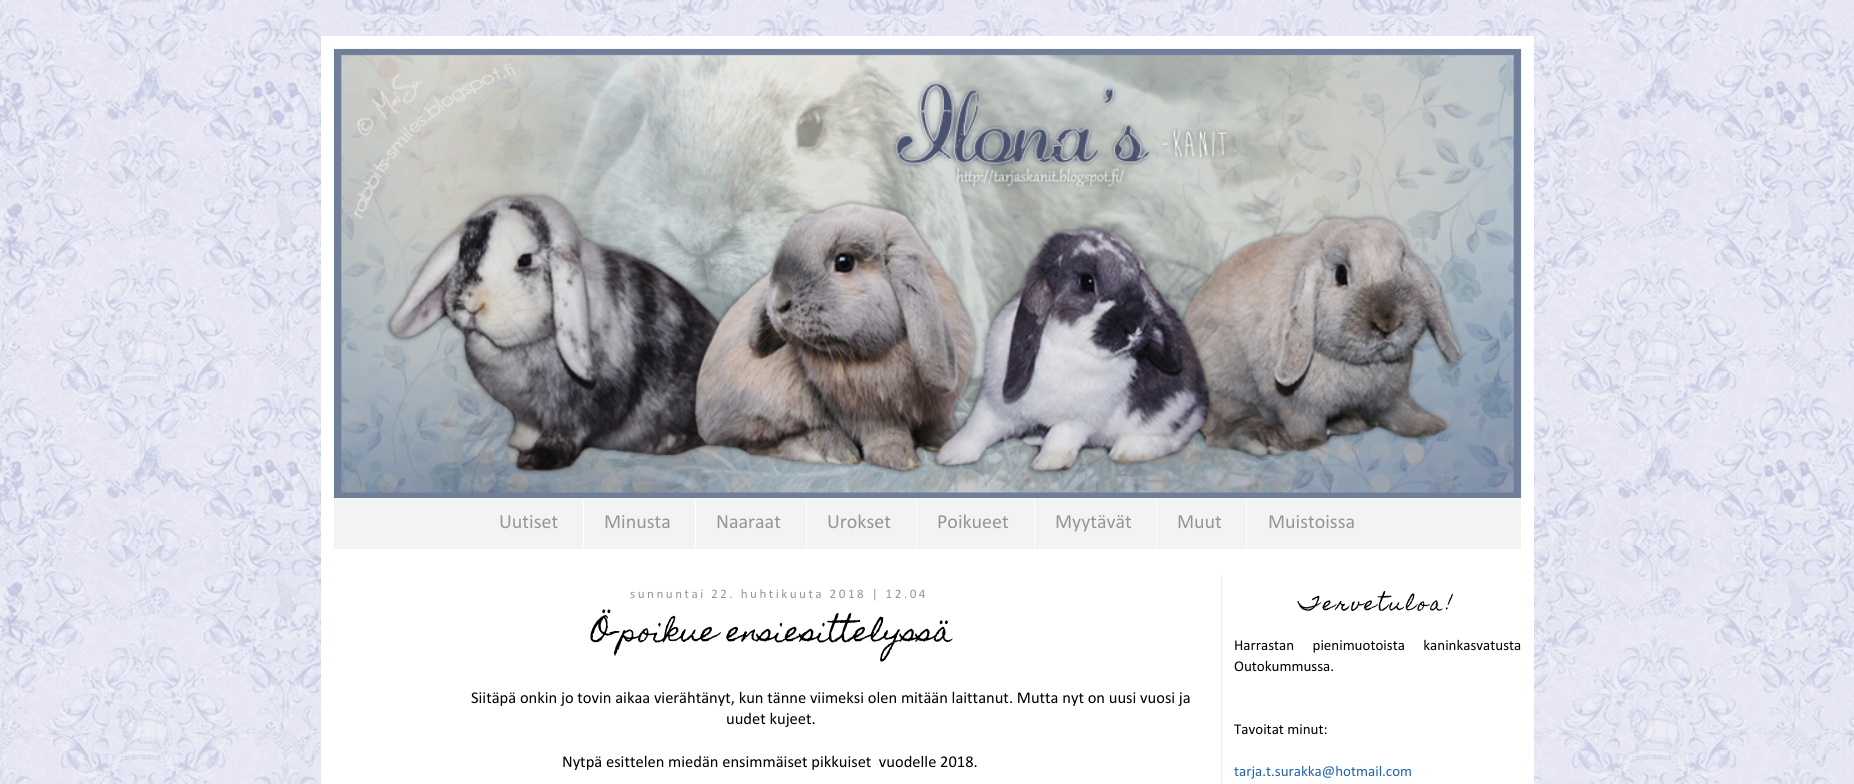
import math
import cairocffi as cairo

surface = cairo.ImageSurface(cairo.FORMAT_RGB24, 1854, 784)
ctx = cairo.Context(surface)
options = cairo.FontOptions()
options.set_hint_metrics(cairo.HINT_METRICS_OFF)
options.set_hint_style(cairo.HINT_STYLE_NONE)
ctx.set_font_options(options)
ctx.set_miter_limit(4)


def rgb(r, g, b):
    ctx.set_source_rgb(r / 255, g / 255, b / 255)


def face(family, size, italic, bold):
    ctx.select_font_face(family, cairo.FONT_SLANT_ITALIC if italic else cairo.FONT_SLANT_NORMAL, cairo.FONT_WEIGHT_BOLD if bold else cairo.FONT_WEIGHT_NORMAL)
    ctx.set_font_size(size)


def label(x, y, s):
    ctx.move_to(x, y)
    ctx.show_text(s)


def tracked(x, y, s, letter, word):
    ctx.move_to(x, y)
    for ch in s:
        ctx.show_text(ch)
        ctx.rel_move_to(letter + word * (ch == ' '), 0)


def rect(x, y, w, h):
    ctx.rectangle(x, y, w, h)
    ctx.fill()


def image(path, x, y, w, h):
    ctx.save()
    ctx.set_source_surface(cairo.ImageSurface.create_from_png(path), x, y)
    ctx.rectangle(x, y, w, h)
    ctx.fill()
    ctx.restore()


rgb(255, 255, 255)
ctx.paint()
image('image0.png', 0, 0, 1854, 784)
rgb(255, 255, 255)
rect(321, 36, 1213, 748)
image('image1.png', 333, 48, 1189, 451)
rgb(243, 243, 243)
rect(334, 498, 1187, 51)
face('Calibri', 20, 0, 0)
rgb(149, 149, 149)
label(499, 528, 'Uutiset')
rgb(255, 255, 255)
rect(583, 499, 1, 49)
rgb(149, 149, 149)
label(604, 528, 'Minusta')
rgb(255, 255, 255)
rect(695, 499, 1, 49)
rgb(149, 149, 149)
label(716, 528, 'Naaraat')
rgb(255, 255, 255)
rect(806, 499, 1, 49)
rgb(149, 149, 149)
label(827, 528, 'Urokset')
rgb(255, 255, 255)
rect(916, 499, 1, 49)
rgb(149, 149, 149)
label(937, 528, 'Poikueet')
rgb(255, 255, 255)
rect(1034, 499, 1, 49)
rgb(149, 149, 149)
label(1055, 528, 'Myytävät')
rgb(255, 255, 255)
rect(1156, 499, 1, 49)
rgb(149, 149, 149)
label(1177, 528, 'Muut')
rgb(255, 255, 255)
rect(1246, 499, 1, 49)
rgb(149, 149, 149)
label(1268, 528, 'Muistoissa')
rgb(236, 236, 236)
rect(1221, 574, 1, 210)
face('Calibri', 13.1, 0, 0)
rgb(149, 149, 149)
tracked(630, 598, 'sunnuntai 22. huhtikuuta 2018 | 12.04', 2.5, 0)
face('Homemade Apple', 27.5, 0, 0)
rgb(0, 0, 0)
label(591, 641, 'Ö-poikue ensiesittelyssä')
face('Calibri', 16.5, 0, 0)
label(471, 703, 'Siitäpä onkin jo tovin aikaa vierähtänyt, kun tänne viimeksi olen mitään laittanut. Mutta nyt on uusi vuosi ja')
label(726, 724, 'uudet kujeet.')
label(562, 767, 'Nytpä esittelen miedän ensimmäiset pikkuiset  vuodelle 2018.')
face('Homemade Apple', 18.75, 0, 0)
tracked(1299, 610, 'Tervetuloa!', 2.5, 0)
face('Calibri', 15, 0, 0)
tracked(1234, 650, 'Harrastan pienimuotoista kaninkasvatusta', 0, 15)
label(1234, 671, 'Outokummussa.')
label(1234, 734, 'Tavoitat minut:')
rgb(31, 99, 173)
label(1234, 776, 'tarja.t.surakka@hotmail.com')
surface.write_to_png('render.png')
